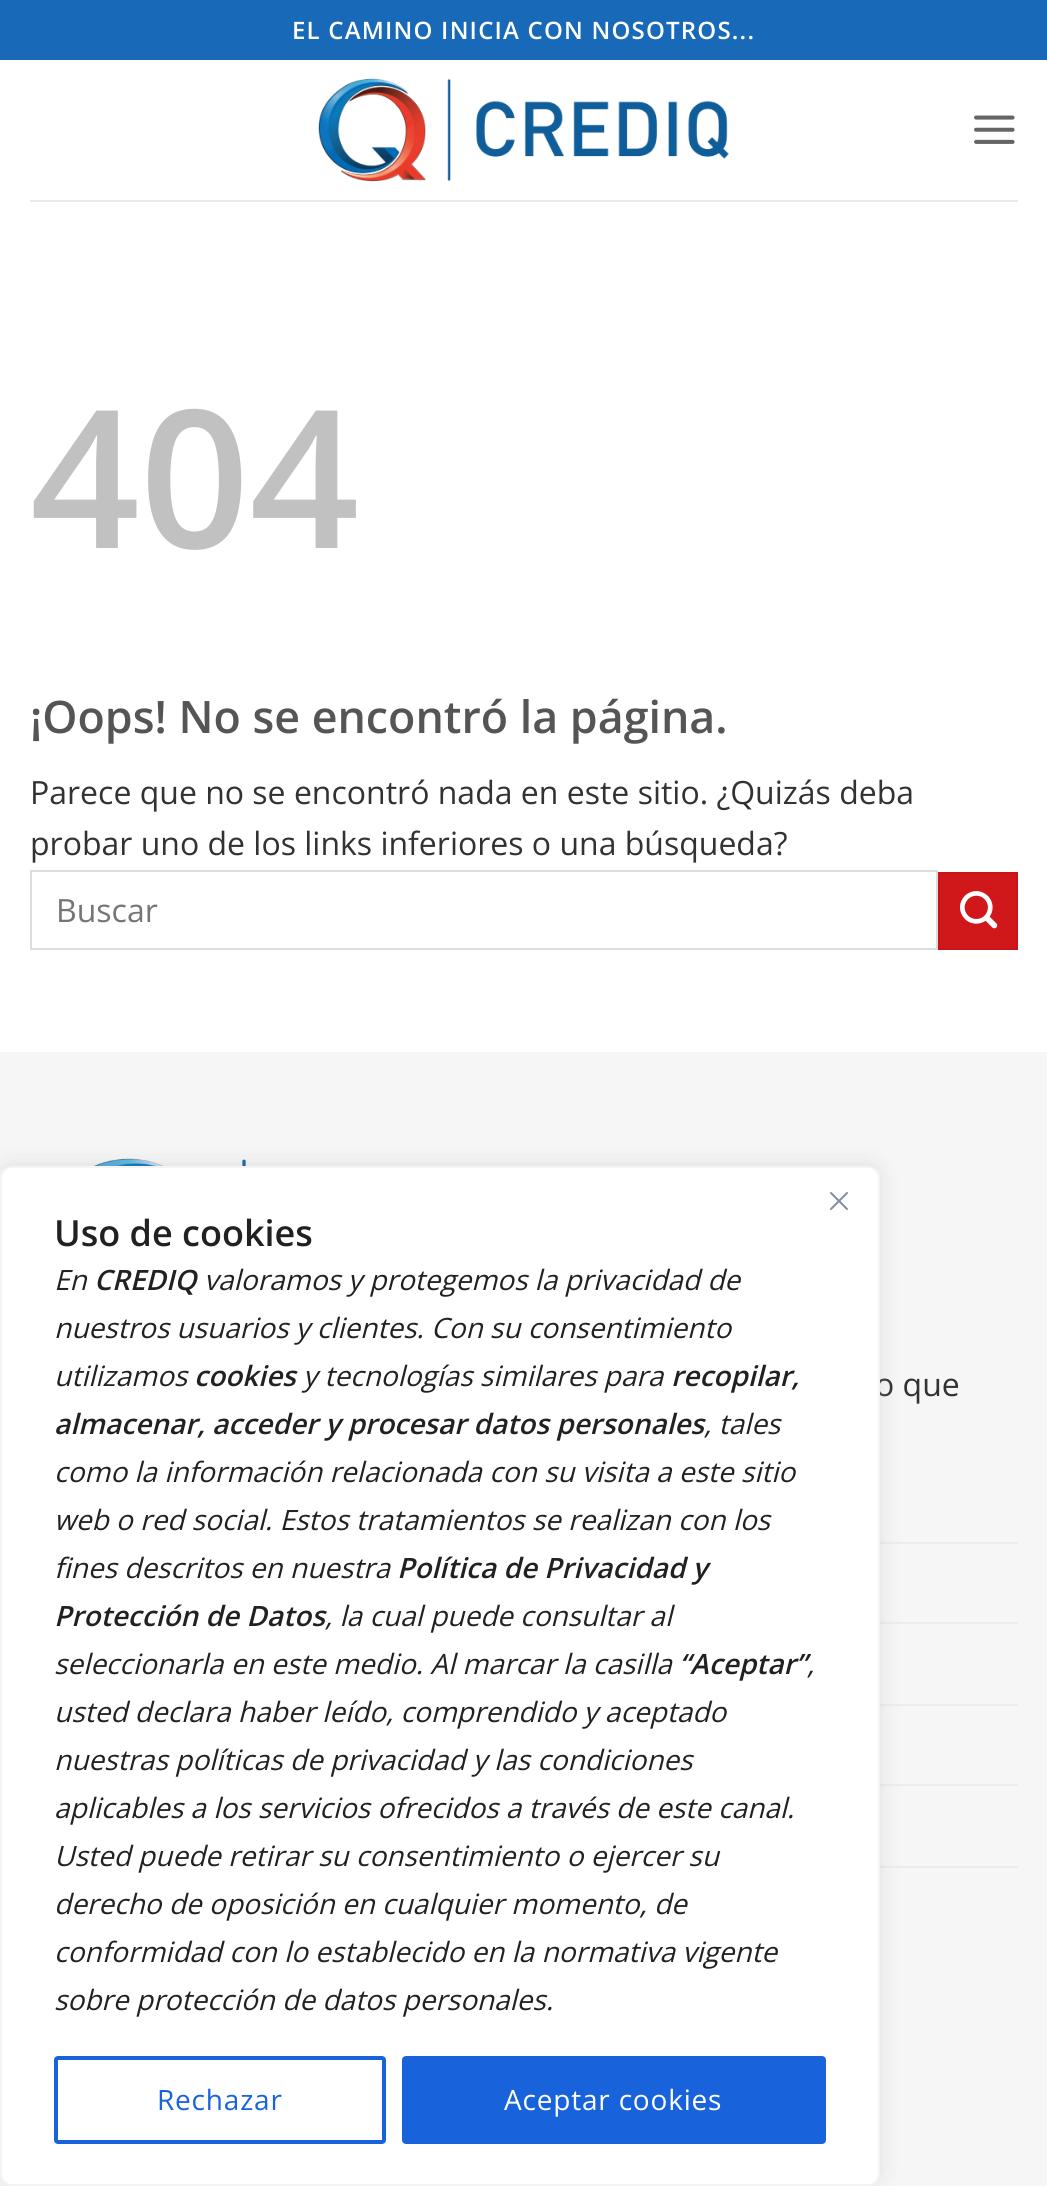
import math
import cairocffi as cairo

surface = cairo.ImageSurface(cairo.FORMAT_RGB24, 1047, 2186)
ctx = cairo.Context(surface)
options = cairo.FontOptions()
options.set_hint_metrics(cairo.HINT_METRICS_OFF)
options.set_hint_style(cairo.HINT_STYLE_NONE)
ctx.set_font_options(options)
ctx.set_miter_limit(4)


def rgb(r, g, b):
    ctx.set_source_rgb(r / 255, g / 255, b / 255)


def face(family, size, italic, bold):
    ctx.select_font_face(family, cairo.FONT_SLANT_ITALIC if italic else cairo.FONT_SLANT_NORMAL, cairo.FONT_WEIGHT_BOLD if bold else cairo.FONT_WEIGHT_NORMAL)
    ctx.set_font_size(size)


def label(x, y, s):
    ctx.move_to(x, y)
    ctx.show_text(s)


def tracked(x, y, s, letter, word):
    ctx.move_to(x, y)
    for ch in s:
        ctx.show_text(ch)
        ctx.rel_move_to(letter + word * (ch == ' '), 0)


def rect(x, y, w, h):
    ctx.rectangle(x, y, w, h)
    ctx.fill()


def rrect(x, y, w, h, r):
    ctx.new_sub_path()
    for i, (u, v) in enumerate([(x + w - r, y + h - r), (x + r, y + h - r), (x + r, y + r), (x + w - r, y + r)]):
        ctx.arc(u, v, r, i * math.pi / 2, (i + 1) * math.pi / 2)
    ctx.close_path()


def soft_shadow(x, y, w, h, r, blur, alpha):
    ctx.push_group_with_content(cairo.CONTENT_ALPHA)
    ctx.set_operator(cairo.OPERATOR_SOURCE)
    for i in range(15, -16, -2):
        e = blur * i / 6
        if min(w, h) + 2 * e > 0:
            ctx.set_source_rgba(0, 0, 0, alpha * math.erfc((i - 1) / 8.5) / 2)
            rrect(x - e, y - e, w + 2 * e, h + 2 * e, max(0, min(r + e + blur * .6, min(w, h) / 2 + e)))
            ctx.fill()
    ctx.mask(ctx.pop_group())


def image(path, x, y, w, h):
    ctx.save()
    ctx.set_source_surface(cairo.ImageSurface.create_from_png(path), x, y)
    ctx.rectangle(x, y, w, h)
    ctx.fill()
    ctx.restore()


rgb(255, 255, 255)
ctx.paint()
rgb(24, 106, 184)
rect(0, 0, 1047, 60)
face('Open Sans SemiBold', 24, 0, 0)
rgb(255, 255, 255)
tracked(292, 39, 'EL CAMINO INICIA CON NOSOTROS...', 1.2, 0)
image('image0.png', 318, 78, 411, 104)
image('image1.png', 974, 115, 41, 29)
rgb(235, 234, 234)
rect(30, 200, 988, 2)
face('Open Sans SemiBold', 192, 0, 0)
rgb(194, 193, 193)
label(30, 548, '404')
face('Open Sans SemiBold', 44.75, 0, 0)
rgb(85, 85, 85)
label(30, 733, '¡Oops! No se encontró la página.')
face('Open Sans', 32, 0, 0)
rgb(52, 49, 49)
label(30, 804, 'Parece que no se encontró nada en este sitio. ¿Quizás deba')
label(30, 855, 'probar uno de los links inferiores o una búsqueda?')
ctx.rectangle(31, 871, 906, 78)
rgb(221, 221, 221)
ctx.stroke()
rgb(117, 117, 117)
label(56, 922, 'Buscar')
rgb(208, 23, 26)
ctx.rectangle(939, 873, 78, 76)
ctx.fill_preserve()
rgb(198, 22, 25)
ctx.stroke()
image('image2.png', 960, 891, 38, 38)
rgb(246, 246, 246)
rect(0, 1052, 1047, 1134)
image('image3.png', 94, 1158, 152, 8)
rgb(52, 49, 49)
label(875, 1396, 'o que')
rgb(236, 236, 236)
rect(880, 1542, 138, 2)
rect(880, 1622, 138, 2)
rect(880, 1704, 138, 2)
rect(880, 1784, 138, 2)
rect(880, 1866, 138, 2)
rgb(172, 171, 171)
soft_shadow(0, 1164, 880, 1020, 12, 10, 0.3)
rgb(255, 255, 255)
rrect(1, 1167, 878, 1018, 11)
ctx.fill_preserve()
rgb(244, 244, 244)
ctx.stroke()
image('image4.png', 830, 1192, 18, 18)
face('Open Sans SemiBold', 36, 0, 0)
rgb(33, 33, 33)
label(54, 1246, 'Uso de cookies')
face('Open Sans', 28, 1, 0)
label(54, 1290, 'En')
face('Open Sans SemiBold', 28, 1, 0)
label(94, 1290, 'CREDIQ')
face('Open Sans', 28, 1, 0)
label(204, 1290, 'valoramos y protegemos la privacidad de')
label(54, 1338, 'nuestros usuarios y clientes. Con su consentimiento')
label(54, 1386, 'utilizamos')
face('Open Sans SemiBold', 28, 1, 0)
label(194, 1386, 'cookies')
face('Open Sans', 28, 1, 0)
label(303, 1386, 'y tecnologías similares para')
face('Open Sans SemiBold', 28, 1, 0)
label(671, 1386, 'recopilar,')
label(54, 1434, 'almacenar, acceder y procesar datos personales')
face('Open Sans', 28, 1, 0)
label(704, 1434, ', tales')
label(54, 1482, 'como la información relacionada con su visita a este sitio')
label(54, 1530, 'web o red social. Estos tratamientos se realizan con los')
label(54, 1578, 'fines descritos en nuestra')
face('Open Sans SemiBold', 28, 1, 0)
label(397, 1578, 'Política de Privacidad y')
label(54, 1626, 'Protección de Datos')
face('Open Sans', 28, 1, 0)
label(325, 1626, ', la cual puede consultar al')
label(54, 1674, 'seleccionarla en este medio. Al marcar la casilla')
face('Open Sans SemiBold', 28, 1, 0)
label(679, 1674, '“Aceptar”')
face('Open Sans', 28, 1, 0)
label(807, 1674, ',')
label(54, 1722, 'usted declara haber leído, comprendido y aceptado')
label(54, 1770, 'nuestras políticas de privacidad y las condiciones')
label(54, 1818, 'aplicables a los servicios ofrecidos a través de este canal.')
label(54, 1866, 'Usted puede retirar su consentimiento o ejercer su')
label(54, 1914, 'derecho de oposición en cualquier momento, de')
label(54, 1962, 'conformidad con lo establecido en la normativa vigente')
label(54, 2010, 'sobre protección de datos personales.')
rrect(56, 2058, 328, 84, 2)
rgb(24, 99, 220)
ctx.set_line_width(4)
ctx.stroke()
face('Open Sans', 28, 0, 0)
tracked(157, 2110, 'Rechazar', 0.8, 0)
rrect(404, 2058, 420, 84, 2)
ctx.fill_preserve()
ctx.stroke()
rgb(255, 255, 255)
tracked(504, 2110, 'Aceptar cookies', 0.8, 0)
surface.write_to_png('render.png')
